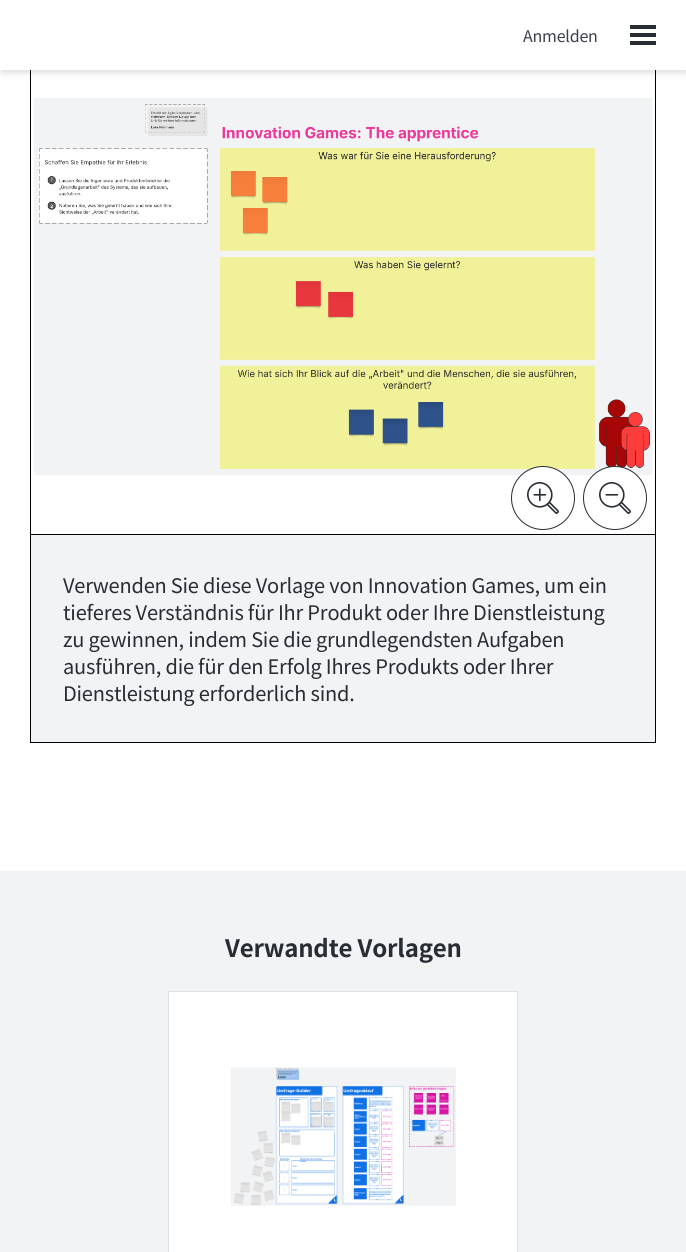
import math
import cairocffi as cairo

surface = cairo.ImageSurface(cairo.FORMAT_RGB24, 686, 1252)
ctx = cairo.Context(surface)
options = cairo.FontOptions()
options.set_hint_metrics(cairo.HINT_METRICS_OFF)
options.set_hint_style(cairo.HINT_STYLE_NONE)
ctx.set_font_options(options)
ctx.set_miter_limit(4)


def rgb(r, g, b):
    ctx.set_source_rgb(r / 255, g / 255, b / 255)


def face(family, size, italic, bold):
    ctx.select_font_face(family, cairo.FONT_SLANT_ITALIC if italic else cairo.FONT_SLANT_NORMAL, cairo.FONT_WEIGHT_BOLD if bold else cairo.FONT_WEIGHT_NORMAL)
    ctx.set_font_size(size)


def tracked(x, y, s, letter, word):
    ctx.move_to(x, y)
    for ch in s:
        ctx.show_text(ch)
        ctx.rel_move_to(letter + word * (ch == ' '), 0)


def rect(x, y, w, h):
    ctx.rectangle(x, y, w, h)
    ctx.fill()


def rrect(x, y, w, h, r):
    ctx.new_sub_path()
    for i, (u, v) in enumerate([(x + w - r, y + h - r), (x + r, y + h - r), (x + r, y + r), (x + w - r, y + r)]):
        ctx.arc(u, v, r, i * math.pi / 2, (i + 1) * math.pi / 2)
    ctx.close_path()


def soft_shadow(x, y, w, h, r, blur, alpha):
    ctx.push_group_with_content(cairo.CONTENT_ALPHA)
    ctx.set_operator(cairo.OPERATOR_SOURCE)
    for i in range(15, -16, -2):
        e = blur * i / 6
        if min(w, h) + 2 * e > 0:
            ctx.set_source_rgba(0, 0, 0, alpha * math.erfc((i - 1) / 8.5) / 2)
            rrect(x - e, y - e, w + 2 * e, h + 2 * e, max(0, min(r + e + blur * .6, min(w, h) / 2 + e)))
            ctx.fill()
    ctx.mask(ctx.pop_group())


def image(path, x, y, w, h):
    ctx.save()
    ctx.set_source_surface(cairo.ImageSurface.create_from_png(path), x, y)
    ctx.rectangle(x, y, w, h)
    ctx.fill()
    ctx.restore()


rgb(255, 255, 255)
ctx.paint()
ctx.rectangle(30.5, 35.5, 625, 499)
rgb(0, 0, 0)
ctx.set_line_width(1)
ctx.stroke()
rgb(40, 44, 51)
soft_shadow(2, 2, 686, 70, 0, 4, 0.2)
rgb(255, 255, 255)
rect(0, 0, 686, 70)
face('Noto Sans JP', 16, 0, 0)
rgb(58, 65, 74)
tracked(523, 42, 'Anmelden', -0.2, 0)
rgb(40, 44, 51)
rect(630, 25, 26, 4)
rect(630, 33, 26, 4)
rect(630, 41, 26, 4)
image('image0.png', 34, 98, 619, 377)
rgb(255, 255, 255)
ctx.arc(543, 498, 31.5, 0, 2 * math.pi)
ctx.fill_preserve()
rgb(40, 44, 51)
ctx.stroke()
image('image1.png', 527, 482, 32, 32)
rgb(255, 255, 255)
ctx.arc(615, 498, 31.5, 0, 2 * math.pi)
ctx.fill_preserve()
rgb(40, 44, 51)
ctx.stroke()
image('image2.png', 599, 482, 32, 32)
rgb(242, 243, 245)
rect(31, 535, 624, 207)
rgb(0, 0, 0)
rect(655, 535, 1, 208)
rect(30, 742, 626, 1)
rect(30, 535, 1, 208)
face('Noto Sans JP', 20, 0, 0)
rgb(40, 44, 51)
tracked(63, 593, 'Verwenden Sie diese Vorlage von Innovation Games, um ein', -0.2, 0)
tracked(63, 620, 'tieferes Verständnis für Ihr Produkt oder Ihre Dienstleistung', -0.2, 0)
tracked(63, 647, 'zu gewinnen, indem Sie die grundlegendsten Aufgaben', -0.2, 0)
tracked(63, 674, 'ausführen, die für den Erfolg Ihres Produkts oder Ihrer', -0.2, 0)
tracked(63, 701, 'Dienstleistung erforderlich sind.', -0.2, 0)
rgb(242, 243, 245)
rect(0, 871, 686, 381)
face('Noto Sans JP', 24, 0, 1)
rgb(40, 44, 51)
tracked(225, 957, 'Verwandte Vorlagen', -0.2, 0)
rgb(255, 255, 255)
ctx.rectangle(168.5, 991.5, 349, 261)
ctx.fill_preserve()
rgb(223, 227, 232)
ctx.stroke()
image('image3.png', 231, 1067, 225, 139)
surface.write_to_png('render.png')
